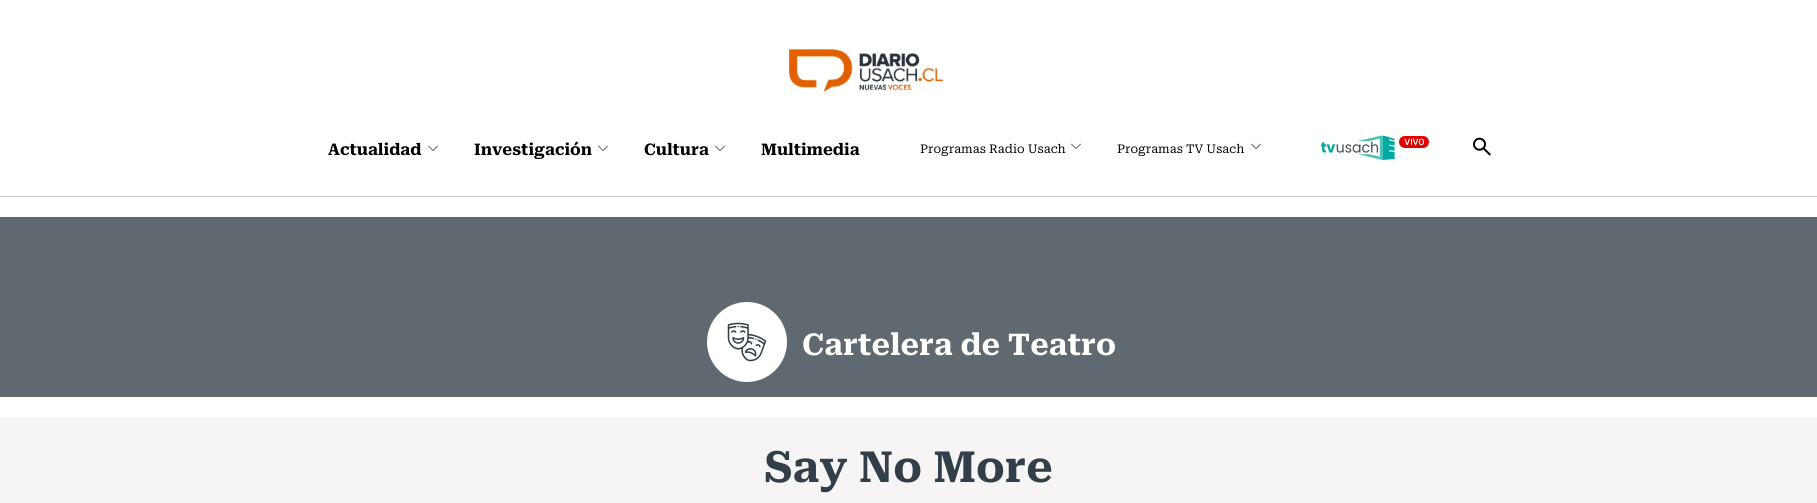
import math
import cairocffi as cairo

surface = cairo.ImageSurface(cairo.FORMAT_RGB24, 1817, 503)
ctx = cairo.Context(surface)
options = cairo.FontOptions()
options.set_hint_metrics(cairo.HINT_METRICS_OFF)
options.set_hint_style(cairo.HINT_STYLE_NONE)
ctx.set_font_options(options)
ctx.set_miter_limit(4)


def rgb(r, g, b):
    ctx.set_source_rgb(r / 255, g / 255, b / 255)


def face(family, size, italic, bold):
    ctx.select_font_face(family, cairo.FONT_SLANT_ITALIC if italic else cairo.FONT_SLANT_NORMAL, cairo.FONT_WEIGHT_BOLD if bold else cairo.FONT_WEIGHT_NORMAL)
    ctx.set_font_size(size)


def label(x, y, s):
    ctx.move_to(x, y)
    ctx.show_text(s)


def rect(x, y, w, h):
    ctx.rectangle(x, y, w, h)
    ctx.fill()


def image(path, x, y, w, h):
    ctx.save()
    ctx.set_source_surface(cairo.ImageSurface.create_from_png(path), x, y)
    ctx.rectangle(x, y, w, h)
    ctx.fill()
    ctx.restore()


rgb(255, 255, 255)
ctx.paint()
rgb(204, 204, 204)
rect(0, 196, 1817, 1)
image('image0.png', 788, 49, 156, 43)
face('Roboto Serif', 16, 0, 1)
rgb(0, 0, 0)
label(328, 155, 'Actualidad')
image('image1.png', 428, 145, 10, 6)
label(474, 155, 'Investigación')
image('image1.png', 598, 145, 10, 6)
label(644, 155, 'Cultura')
image('image1.png', 715, 145, 10, 6)
label(761, 155, 'Multimedia')
face('Roboto Serif', 12, 0, 0)
label(920, 153, 'Programas Radio Usach')
image('image1.png', 1071, 143, 10, 6)
label(1117, 153, 'Programas TV Usach')
image('image1.png', 1251, 143, 10, 6)
image('image2.png', 1321, 135, 108, 25)
image('image3.png', 1473, 137, 18, 19)
rgb(96, 104, 112)
rect(0, 217, 1817, 180)
image('image4.png', 707, 302, 80, 80)
face('Roboto Serif', 30, 0, 1)
rgb(255, 255, 255)
label(802, 355, 'Cartelera de Teatro')
rgb(246, 244, 244)
rect(0, 417, 1817, 86)
face('Roboto Serif', 43, 0, 1)
rgb(50, 62, 72)
label(764, 482, 'Say No More')
surface.write_to_png('render.png')
